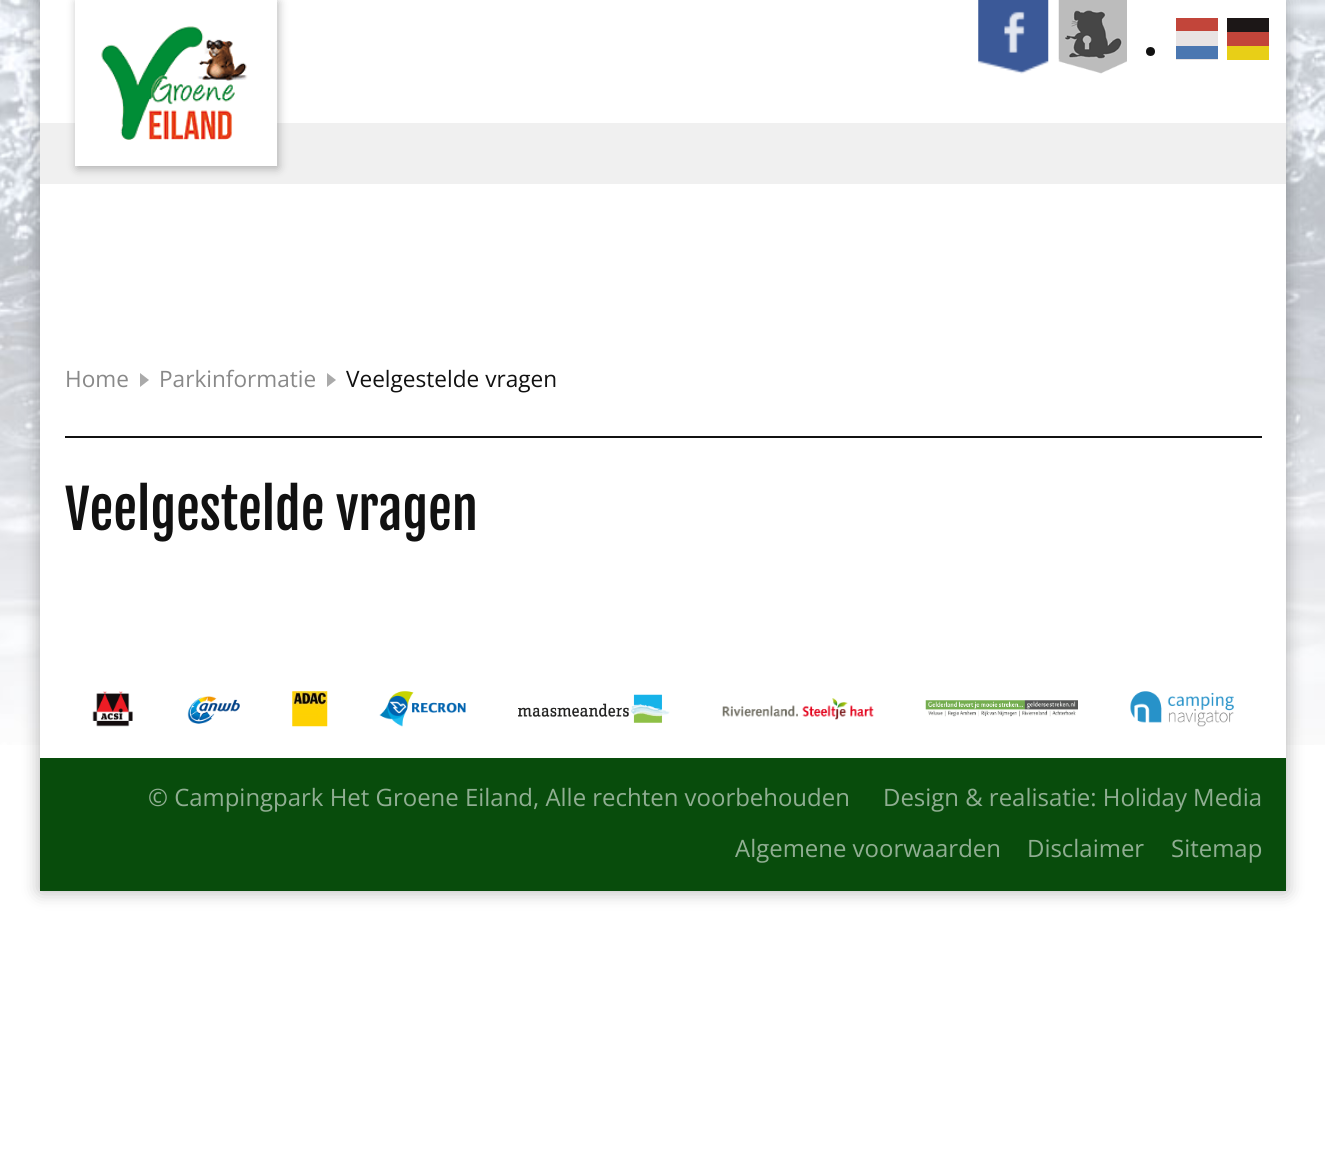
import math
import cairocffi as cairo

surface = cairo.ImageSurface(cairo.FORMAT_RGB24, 1325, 1162)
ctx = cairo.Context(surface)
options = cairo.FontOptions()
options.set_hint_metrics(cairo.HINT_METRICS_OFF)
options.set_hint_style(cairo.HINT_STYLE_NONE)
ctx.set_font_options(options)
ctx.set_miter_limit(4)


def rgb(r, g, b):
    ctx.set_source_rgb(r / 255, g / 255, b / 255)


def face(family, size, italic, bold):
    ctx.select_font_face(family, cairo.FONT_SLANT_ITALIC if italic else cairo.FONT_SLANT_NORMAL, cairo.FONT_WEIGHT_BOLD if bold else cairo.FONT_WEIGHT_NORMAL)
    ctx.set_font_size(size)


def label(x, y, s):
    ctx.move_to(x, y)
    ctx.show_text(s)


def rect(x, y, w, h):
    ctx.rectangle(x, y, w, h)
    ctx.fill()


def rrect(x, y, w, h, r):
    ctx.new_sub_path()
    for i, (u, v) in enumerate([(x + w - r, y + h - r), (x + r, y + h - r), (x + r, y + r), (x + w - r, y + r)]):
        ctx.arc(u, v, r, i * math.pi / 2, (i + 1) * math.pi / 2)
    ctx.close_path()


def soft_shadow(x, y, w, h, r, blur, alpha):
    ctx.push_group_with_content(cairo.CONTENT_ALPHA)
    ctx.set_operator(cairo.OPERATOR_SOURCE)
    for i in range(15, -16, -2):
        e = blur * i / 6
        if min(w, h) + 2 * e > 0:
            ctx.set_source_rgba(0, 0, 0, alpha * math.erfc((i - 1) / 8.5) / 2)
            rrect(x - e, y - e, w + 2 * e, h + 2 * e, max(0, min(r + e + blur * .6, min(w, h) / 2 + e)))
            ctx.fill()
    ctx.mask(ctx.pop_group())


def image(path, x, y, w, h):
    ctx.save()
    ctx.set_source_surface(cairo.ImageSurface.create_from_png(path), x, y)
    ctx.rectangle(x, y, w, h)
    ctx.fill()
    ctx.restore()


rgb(255, 255, 255)
ctx.paint()
image('image0.png', 0, 0, 1325, 745)
rgb(0, 0, 0)
soft_shadow(40, 0, 1246, 891, 0, 9, 0.3)
rgb(255, 255, 255)
rect(40, 0, 1246, 758)
rgb(240, 240, 240)
rect(40, 123, 1246, 61)
rgb(0, 0, 0)
soft_shadow(77, 2, 201, 166, 0, 5, 0.3)
rgb(255, 255, 255)
rect(75, 0, 202, 166)
image('image1.png', 101, 26, 147, 114)
image('image2.png', 978, 0, 71, 74)
image('image3.png', 1058, 0, 69, 74)
rgb(59, 120, 193)
rect(1176, 46, 42, 13)
rgb(208, 58, 44)
rect(1176, 18, 42, 13)
rgb(17, 17, 17)
ctx.arc(1150.5, 51.5, 4.5, 0, 2 * math.pi)
ctx.fill()
ctx.set_source_rgba(0.549, 0.451, 0.451, 0.2)
rect(1176, 18, 42, 42)
rgb(255, 230, 0)
rect(1227, 46, 42, 14)
rgb(0, 0, 0)
rect(1227, 18, 42, 14)
rgb(208, 58, 44)
rect(1227, 32, 42, 14)
ctx.set_source_rgba(0.549, 0.451, 0.451, 0.2)
rect(1227, 18, 42, 42)
rgb(17, 17, 17)
rect(65, 436, 1197, 2)
face('Open Sans', 22.6, 0, 0)
rgb(137, 137, 137)
label(65, 387, 'Home')
rgb(170, 170, 170)
ctx.new_path()
ctx.move_to(140, 387)
ctx.line_to(140, 373)
ctx.line_to(149, 380)
ctx.close_path()
ctx.fill()
rgb(137, 137, 137)
label(159, 387, 'Parkinformatie')
rgb(170, 170, 170)
ctx.new_path()
ctx.move_to(327, 387)
ctx.line_to(327, 373)
ctx.line_to(336, 380)
ctx.close_path()
ctx.fill()
rgb(17, 17, 17)
label(346, 387, 'Veelgestelde vragen')
face('Fjalla One', 53.25, 0, 0)
label(65, 530, 'Veelgestelde vragen')
image('image4.png', 92, 691, 41, 36)
image('image5.png', 187, 696, 53, 28)
image('image6.png', 292, 691, 36, 36)
image('image7.png', 379, 691, 87, 36)
image('image8.png', 518, 694, 152, 29)
image('image9.png', 722, 698, 152, 22)
image('image10.png', 925, 700, 153, 17)
image('image11.png', 1130, 691, 104, 36)
rgb(8, 76, 12)
rect(40, 758, 1246, 133)
face('Open Sans', 23.95, 0, 0)
rgb(144, 174, 146)
label(148, 806, '© Campingpark Het Groene Eiland, Alle rechten voorbehouden')
label(883, 806, 'Design & realisatie: Holiday Media')
label(735, 857, 'Algemene voorwaarden')
label(1027, 857, 'Disclaimer')
label(1171, 857, 'Sitemap')
surface.write_to_png('render.png')
